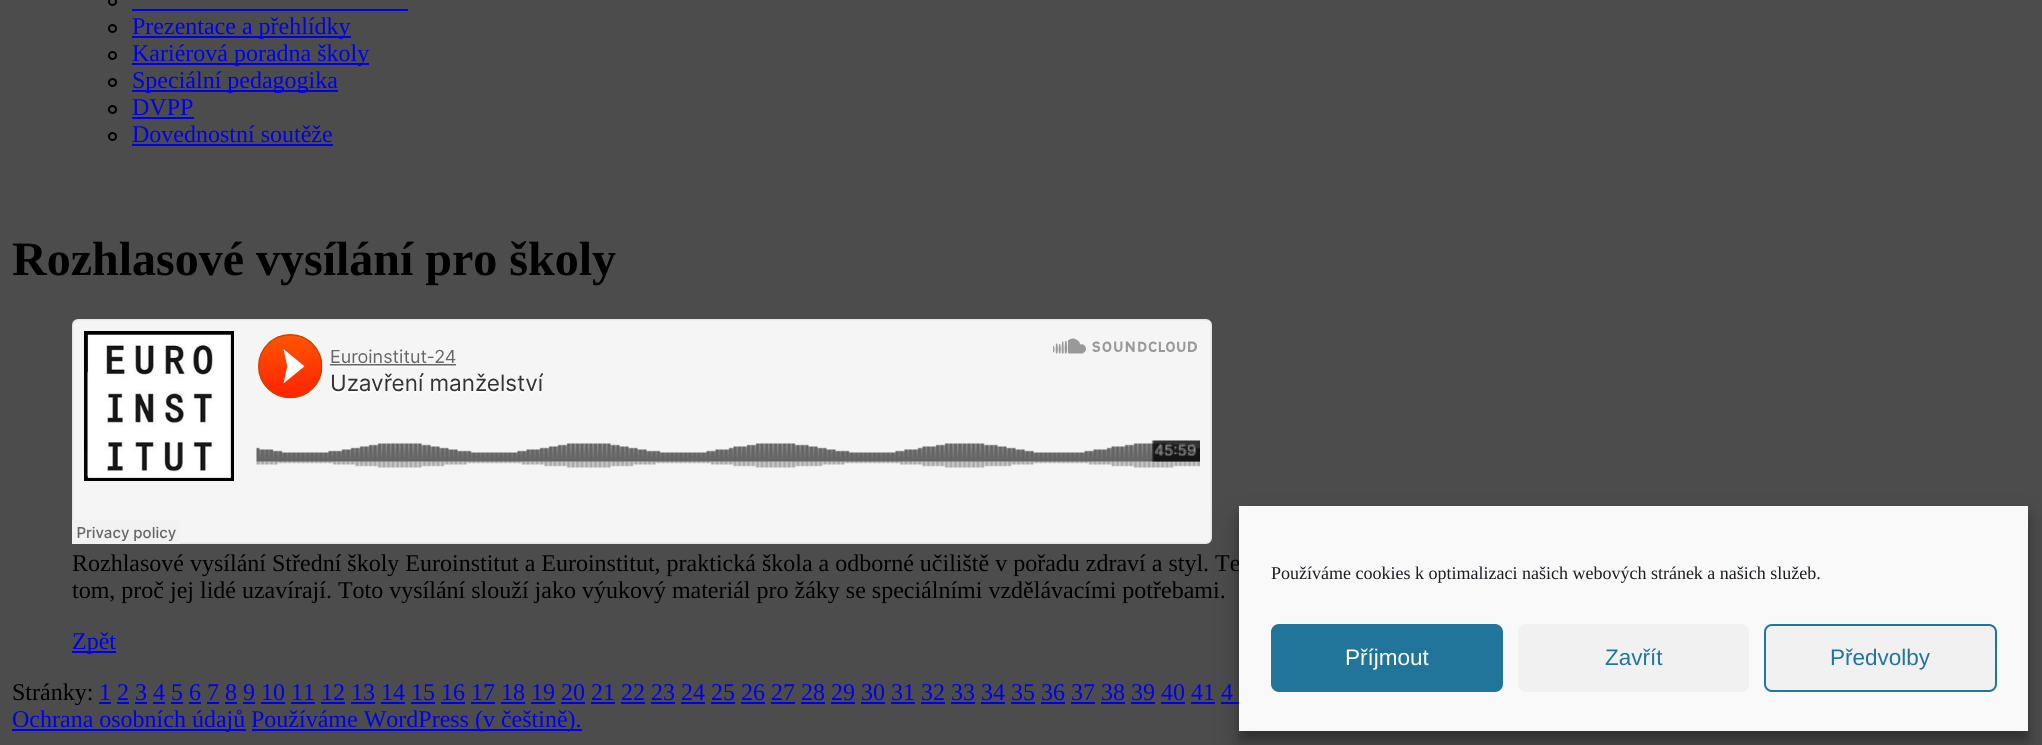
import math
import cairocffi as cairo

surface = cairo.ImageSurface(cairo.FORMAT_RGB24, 2042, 745)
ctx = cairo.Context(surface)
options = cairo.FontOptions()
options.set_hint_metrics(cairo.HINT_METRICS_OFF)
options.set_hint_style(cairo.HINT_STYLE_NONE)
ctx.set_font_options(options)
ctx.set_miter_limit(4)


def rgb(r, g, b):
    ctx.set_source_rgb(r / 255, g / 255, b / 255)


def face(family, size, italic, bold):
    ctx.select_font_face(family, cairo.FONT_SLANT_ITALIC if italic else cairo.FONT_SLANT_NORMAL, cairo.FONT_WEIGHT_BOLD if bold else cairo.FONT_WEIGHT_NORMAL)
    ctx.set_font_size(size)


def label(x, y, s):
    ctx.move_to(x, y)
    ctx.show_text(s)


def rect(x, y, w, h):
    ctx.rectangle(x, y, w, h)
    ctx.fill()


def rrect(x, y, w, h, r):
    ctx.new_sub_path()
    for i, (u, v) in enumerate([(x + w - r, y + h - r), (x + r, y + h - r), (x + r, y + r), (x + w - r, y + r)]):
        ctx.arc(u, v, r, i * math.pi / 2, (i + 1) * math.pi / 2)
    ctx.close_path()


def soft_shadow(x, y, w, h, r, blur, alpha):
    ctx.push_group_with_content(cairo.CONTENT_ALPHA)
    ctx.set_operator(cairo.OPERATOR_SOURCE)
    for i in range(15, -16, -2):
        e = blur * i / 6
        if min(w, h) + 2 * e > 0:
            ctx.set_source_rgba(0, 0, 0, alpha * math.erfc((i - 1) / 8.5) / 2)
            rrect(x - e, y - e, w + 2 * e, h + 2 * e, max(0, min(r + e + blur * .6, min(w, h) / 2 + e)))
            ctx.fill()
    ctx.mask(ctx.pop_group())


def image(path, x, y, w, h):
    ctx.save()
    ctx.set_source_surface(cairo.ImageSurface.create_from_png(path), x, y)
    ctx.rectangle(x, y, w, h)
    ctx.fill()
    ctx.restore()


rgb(76, 76, 76)
ctx.paint()
ctx.arc(112.5, 1.5, 3.5, 0, 2 * math.pi)
rgb(0, 0, 0)
ctx.stroke()
rgb(0, 0, 238)
rect(132, 9, 276, 2)
ctx.arc(112.5, 28.5, 3.5, 0, 2 * math.pi)
rgb(0, 0, 0)
ctx.stroke()
rgb(0, 0, 238)
rect(132, 36, 219, 2)
face('Liberation Serif', 24, 0, 0)
label(132, 34, 'Prezentace a přehlídky')
ctx.new_path()
ctx.arc(112.5, 55.5, 3.5, 0, 2 * math.pi)
rgb(0, 0, 0)
ctx.stroke()
rgb(0, 0, 238)
rect(132, 63, 237, 2)
label(132, 61, 'Kariérová poradna školy')
ctx.new_path()
ctx.arc(112.5, 82.5, 3.5, 0, 2 * math.pi)
rgb(0, 0, 0)
ctx.stroke()
rgb(0, 0, 238)
rect(132, 90, 206, 2)
label(132, 88, 'Speciální pedagogika')
ctx.new_path()
ctx.arc(112.5, 109.5, 3.5, 0, 2 * math.pi)
rgb(0, 0, 0)
ctx.stroke()
rgb(0, 0, 238)
label(132, 115, 'DVPP')
rect(132, 117, 62, 2)
ctx.new_path()
ctx.arc(112.5, 136.5, 3.5, 0, 2 * math.pi)
rgb(0, 0, 0)
ctx.stroke()
rgb(0, 0, 238)
label(132, 142, 'Dovednostní soutěže')
rect(132, 144, 201, 2)
face('Liberation Serif', 48, 0, 1)
rgb(0, 0, 0)
label(12, 275, 'Rozhlasové vysílání pro školy')
image('image0.png', 72, 319, 1140, 225)
face('Liberation Serif', 24, 0, 0)
label(72, 571, 'Rozhlasové vysílání Střední školy Euroinstitut a Euroinstitut, praktická škola a odborné učiliště v pořadu zdraví a styl. Te')
label(72, 598, 'tom, proč jej lidé uzavírají. Toto vysílání slouží jako výukový materiál pro žáky se speciálními vzdělávacími potřebami.')
rgb(0, 0, 238)
rect(72, 651, 44, 2)
label(72, 649, 'Zpět')
rgb(0, 0, 0)
label(12, 700, 'Stránky:')
rgb(0, 0, 238)
label(99, 700, '1 2 3 4 5 6 7 8 9 10 11 12 13 14 15 16 17 18 19 20 21 22 23 24 25 26 27 28 29 30 31 32 33 34 35 36 37 38 39 40 41 4')
rect(99, 702, 12, 2)
rect(117, 702, 12, 2)
rect(135, 702, 12, 2)
rect(153, 702, 12, 2)
rect(171, 702, 12, 2)
rect(189, 702, 12, 2)
rect(207, 702, 12, 2)
rect(225, 702, 12, 2)
rect(243, 702, 12, 2)
rect(261, 702, 24, 2)
rect(291, 702, 24, 2)
rect(321, 702, 24, 2)
rect(351, 702, 24, 2)
rect(381, 702, 24, 2)
rect(411, 702, 24, 2)
rect(441, 702, 24, 2)
rect(471, 702, 24, 2)
rect(501, 702, 24, 2)
rect(531, 702, 24, 2)
rect(561, 702, 24, 2)
rect(591, 702, 24, 2)
rect(621, 702, 24, 2)
rect(651, 702, 24, 2)
rect(681, 702, 24, 2)
rect(711, 702, 24, 2)
rect(741, 702, 24, 2)
rect(771, 702, 24, 2)
rect(801, 702, 24, 2)
rect(831, 702, 24, 2)
rect(861, 702, 24, 2)
rect(891, 702, 24, 2)
rect(921, 702, 24, 2)
rect(951, 702, 24, 2)
rect(981, 702, 24, 2)
rect(1011, 702, 24, 2)
rect(1041, 702, 24, 2)
rect(1071, 702, 24, 2)
rect(1101, 702, 24, 2)
rect(1131, 702, 24, 2)
rect(1161, 702, 24, 2)
rect(1191, 702, 24, 2)
rect(1221, 702, 24, 2)
rect(12, 729, 234, 2)
label(12, 727, 'Ochrana osobních údajů')
rect(252, 729, 330, 2)
label(251, 727, 'Používáme WordPress (v češtině).')
rgb(0, 0, 0)
soft_shadow(1239, 515, 789, 225, 0, 4.5, 0.23)
soft_shadow(1239, 521, 789, 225, 0, 15, 0.19)
rgb(249, 249, 249)
rect(1239, 506, 789, 225)
face('Liberation Serif', 18, 0, 0)
rgb(25, 30, 35)
label(1271, 579, 'Používáme cookies k optimalizaci našich webových stránek a našich služeb.')
rgb(33, 117, 155)
rrect(1272, 625, 230, 66, 7)
ctx.fill_preserve()
ctx.stroke()
face('Liberation Sans', 22.5, 0, 0)
rgb(255, 255, 255)
label(1345, 665, 'Příjmout')
rgb(241, 241, 241)
rrect(1518, 624, 231, 68, 8)
ctx.fill()
rgb(33, 117, 155)
label(1605, 665, 'Zavřít')
rgb(241, 241, 241)
rrect(1765, 625, 231, 66, 7)
ctx.fill_preserve()
rgb(33, 117, 155)
ctx.stroke()
label(1830, 665, 'Předvolby')
surface.write_to_png('render.png')
